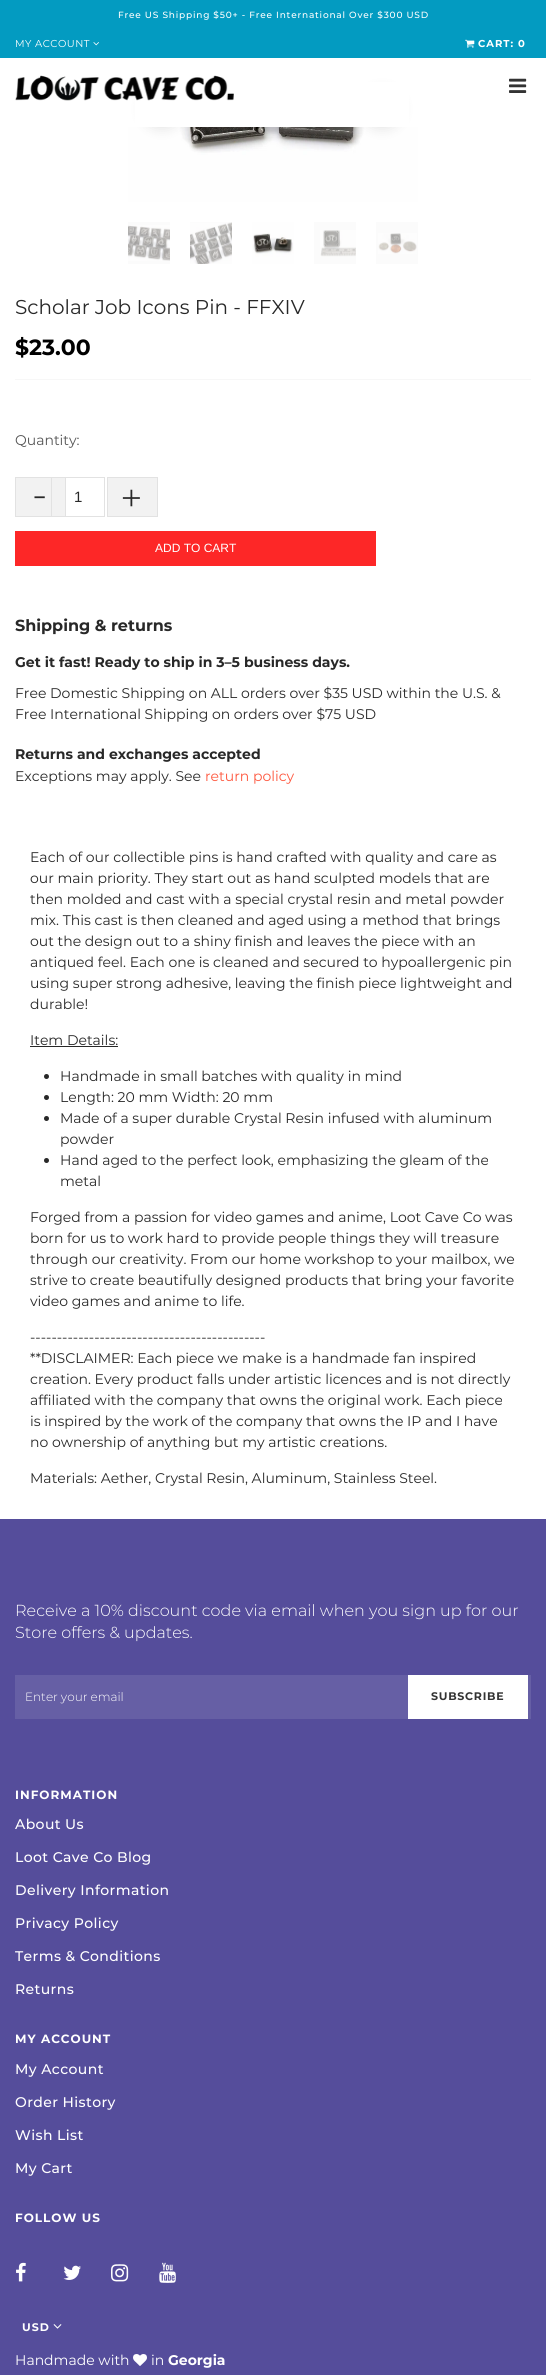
import math
import cairocffi as cairo

surface = cairo.ImageSurface(cairo.FORMAT_RGB24, 546, 2375)
ctx = cairo.Context(surface)
options = cairo.FontOptions()
options.set_hint_metrics(cairo.HINT_METRICS_OFF)
options.set_hint_style(cairo.HINT_STYLE_NONE)
ctx.set_font_options(options)
ctx.set_miter_limit(4)


def rgb(r, g, b):
    ctx.set_source_rgb(r / 255, g / 255, b / 255)


def face(family, size, italic, bold):
    ctx.select_font_face(family, cairo.FONT_SLANT_ITALIC if italic else cairo.FONT_SLANT_NORMAL, cairo.FONT_WEIGHT_BOLD if bold else cairo.FONT_WEIGHT_NORMAL)
    ctx.set_font_size(size)


def label(x, y, s):
    ctx.move_to(x, y)
    ctx.show_text(s)


def tracked(x, y, s, letter, word):
    ctx.move_to(x, y)
    for ch in s:
        ctx.show_text(ch)
        ctx.rel_move_to(letter + word * (ch == ' '), 0)


def rect(x, y, w, h):
    ctx.rectangle(x, y, w, h)
    ctx.fill()


def rrect(x, y, w, h, r):
    ctx.new_sub_path()
    for i, (u, v) in enumerate([(x + w - r, y + h - r), (x + r, y + h - r), (x + r, y + r), (x + w - r, y + r)]):
        ctx.arc(u, v, r, i * math.pi / 2, (i + 1) * math.pi / 2)
    ctx.close_path()


def soft_shadow(x, y, w, h, r, blur, alpha):
    ctx.push_group_with_content(cairo.CONTENT_ALPHA)
    ctx.set_operator(cairo.OPERATOR_SOURCE)
    for i in range(15, -16, -2):
        e = blur * i / 6
        if min(w, h) + 2 * e > 0:
            ctx.set_source_rgba(0, 0, 0, alpha * math.erfc((i - 1) / 8.5) / 2)
            rrect(x - e, y - e, w + 2 * e, h + 2 * e, max(0, min(r + e + blur * .6, min(w, h) / 2 + e)))
            ctx.fill()
    ctx.mask(ctx.pop_group())


def image(path, x, y, w, h):
    ctx.save()
    ctx.set_source_surface(cairo.ImageSurface.create_from_png(path), x, y)
    ctx.rectangle(x, y, w, h)
    ctx.fill()
    ctx.restore()


rgb(255, 255, 255)
ctx.paint()
rgb(3, 155, 193)
rect(0, 0, 546, 58)
face('Montserrat Medium', 9, 0, 0)
rgb(255, 255, 255)
tracked(118, 18, 'Free US Shipping $50+ - Free International Over $300 USD', 0.8, 0)
face('Montserrat', 10, 0, 0)
tracked(15, 47, 'MY ACCOUNT', 0.5, 0)
image('image0.png', 93, 42, 6, 4)
image('image1.png', 465, 39, 10, 9)
face('Montserrat', 10, 0, 1)
tracked(478, 47, 'CART: 0', 1, 0)
image('image4.png', 128, 127, 290, 75)
rgb(0, 0, 0)
soft_shadow(142, 89, 40, 40, 20, 6, 0.1)
soft_shadow(362, 89, 40, 40, 20, 6, 0.1)
rgb(255, 255, 255)
rect(135, 82, 274, 45)
image('image2.png', 15, 75, 219, 26)
image('image3.png', 509, 78, 18, 15)
rgb(251, 251, 251)
rect(128, 222, 42, 42)
image('image5.png', 128, 225, 42, 36)
rect(190, 222, 42, 42)
image('image6.png', 190, 222, 42, 42)
image('image7.png', 252, 222, 42, 42)
rect(314, 222, 42, 42)
image('image8.png', 320, 230, 36, 27)
rect(376, 222, 42, 42)
image('image9.png', 378, 233, 39, 21)
face('Montserrat', 20, 0, 0)
rgb(40, 40, 40)
label(15, 314, 'Scholar Job Icons Pin - FFXIV')
face('Montserrat', 22, 0, 1)
rgb(0, 0, 0)
label(15, 355, '$23.00')
rgb(247, 247, 247)
rect(15, 379, 516, 1)
face('Montserrat', 14, 0, 0)
rgb(85, 85, 85)
label(15, 445, 'Quantity:')
rgb(242, 242, 242)
ctx.rectangle(15.5, 477.5, 50, 39)
ctx.fill_preserve()
rgb(226, 226, 226)
ctx.set_line_width(1)
ctx.stroke()
face('Montserrat Light', 40, 0, 0)
rgb(40, 40, 40)
label(32, 508, '-')
ctx.rectangle(51.5, 477.5, 53, 39)
rgb(226, 226, 226)
ctx.stroke()
face('Liberation Sans', 15, 0, 0)
rgb(40, 40, 40)
label(74, 502, '1')
rgb(242, 242, 242)
ctx.rectangle(107.5, 477.5, 50, 39)
ctx.fill_preserve()
rgb(226, 226, 226)
ctx.stroke()
face('Montserrat Light', 40, 0, 0)
rgb(40, 40, 40)
label(120, 512, '+')
rgb(253, 39, 39)
rect(15, 531, 361, 35)
face('Liberation Sans', 12, 0, 0)
rgb(255, 255, 255)
label(155, 552, 'ADD TO CART')
face('Montserrat', 16, 0, 1)
rgb(40, 40, 40)
label(15, 631, 'Shipping & returns')
face('Montserrat', 14, 0, 1)
label(15, 667, 'Get it fast! Ready to ship in 3–5 business days.')
face('Montserrat', 14, 0, 0)
label(15, 698, 'Free Domestic Shipping on ALL orders over $35 USD within the U.S. &')
label(15, 719, 'Free International Shipping on orders over $75 USD')
face('Montserrat', 14, 0, 1)
label(15, 759, 'Returns and exchanges accepted')
face('Montserrat', 14, 0, 0)
label(15, 781, 'Exceptions may apply. See')
rgb(254, 87, 62)
label(205, 781, 'return policy')
rgb(40, 40, 40)
label(30, 862, 'Each of our collectible pins is hand crafted with quality and care as')
label(30, 883, 'our main priority. They start out as hand sculpted models that are')
label(30, 904, 'then molded and cast with a special crystal resin and metal powder')
label(30, 925, 'mix. This cast is then cleaned and aged using a method that brings')
label(30, 946, 'out the design out to a shiny finish and leaves the piece with an')
label(30, 967, 'antiqued feel. Each one is cleaned and secured to hypoallergenic pin')
label(30, 988, 'using super strong adhesive, leaving the finish piece lightweight and')
label(30, 1009, 'durable!')
label(30, 1045, 'Item Details:')
rect(30, 1046, 88, 1)
ctx.new_path()
ctx.arc(46.5, 1076.5, 2.5, 0, 2 * math.pi)
ctx.fill()
label(60, 1081, 'Handmade in small batches with quality in mind')
ctx.new_path()
ctx.arc(46.5, 1097.5, 2.5, 0, 2 * math.pi)
ctx.fill()
label(60, 1102, 'Length: 20 mm Width: 20 mm')
ctx.new_path()
ctx.arc(46.5, 1118.5, 2.5, 0, 2 * math.pi)
ctx.fill()
label(60, 1123, 'Made of a super durable Crystal Resin infused with aluminum')
label(60, 1144, 'powder')
ctx.new_path()
ctx.arc(46.5, 1160.5, 2.5, 0, 2 * math.pi)
ctx.fill()
label(60, 1165, 'Hand aged to the perfect look, emphasizing the gleam of the')
label(60, 1186, 'metal')
label(30, 1222, 'Forged from a passion for video games and anime, Loot Cave Co was')
label(30, 1243, 'born for us to work hard to provide people things they will treasure')
label(30, 1264, 'through our creativity. From our home workshop to your mailbox, we')
label(30, 1285, 'strive to create beautifully designed products that bring your favorite')
label(30, 1306, 'video games and anime to life.')
label(30, 1342, '--------------------------------------------')
label(30, 1363, '**DISCLAIMER: Each piece we make is a handmade fan inspired')
label(30, 1384, 'creation. Every product falls under artistic licences and is not directly')
label(30, 1405, 'affiliated with the company that owns the original work. Each piece')
label(30, 1426, 'is inspired by the work of the company that owns the IP and I have')
label(30, 1447, 'no ownership of anything but my artistic creations.')
label(30, 1483, 'Materials: Aether, Crystal Resin, Aluminum, Stainless Steel.')
rgb(85, 77, 155)
rect(0, 1519, 546, 856)
face('Montserrat Light', 16, 0, 0)
rgb(255, 255, 255)
tracked(15, 1616, 'Receive a 10% discount code via email when you sign up for our', 0.03, 0)
tracked(15, 1638, 'Store offers & updates.', 0.03, 0)
rgb(102, 95, 165)
rect(15, 1675, 516, 44)
face('Montserrat Light', 12, 0, 0)
rgb(255, 255, 255)
label(25, 1701, 'Enter your email')
rect(408, 1675, 120, 44)
face('Montserrat', 11, 0, 1)
rgb(51, 51, 51)
tracked(431, 1700, 'SUBSCRIBE', 0.75, 0)
face('Montserrat', 12, 0, 1)
rgb(255, 255, 255)
tracked(15, 1799, 'INFORMATION', 1, 0)
face('Montserrat Medium', 14, 0, 0)
tracked(15, 1829, 'About Us', 0.4, 0)
tracked(15, 1862, 'Loot Cave Co Blog', 0.4, 0)
tracked(15, 1895, 'Delivery Information', 0.4, 0)
tracked(15, 1928, 'Privacy Policy', 0.4, 0)
tracked(15, 1961, 'Terms & Conditions', 0.4, 0)
tracked(15, 1994, 'Returns', 0.4, 0)
face('Montserrat', 12, 0, 1)
tracked(15, 2043, 'MY ACCOUNT', 1, 0)
face('Montserrat Medium', 14, 0, 0)
tracked(15, 2074, 'My Account', 0.4, 0)
tracked(15, 2107, 'Order History', 0.4, 0)
tracked(15, 2140, 'Wish List', 0.4, 0)
tracked(15, 2173, 'My Cart', 0.4, 0)
face('Montserrat', 12, 0, 1)
tracked(15, 2222, 'FOLLOW US', 1, 0)
image('image10.png', 16, 2262, 10, 20)
image('image11.png', 63, 2265, 18, 15)
image('image12.png', 111, 2264, 18, 18)
image('image13.png', 159, 2262, 17, 21)
face('Montserrat', 11, 0, 1)
tracked(22, 2331, 'USD', 1, 0)
image('image14.png', 53, 2324, 9, 5)
face('Montserrat', 14, 0, 0)
label(15, 2365, 'Handmade with')
image('image15.png', 133, 2354, 14, 12)
label(151, 2365, 'in')
face('Montserrat', 14, 0, 1)
label(168, 2365, 'Georgia')
surface.write_to_png('render.png')
